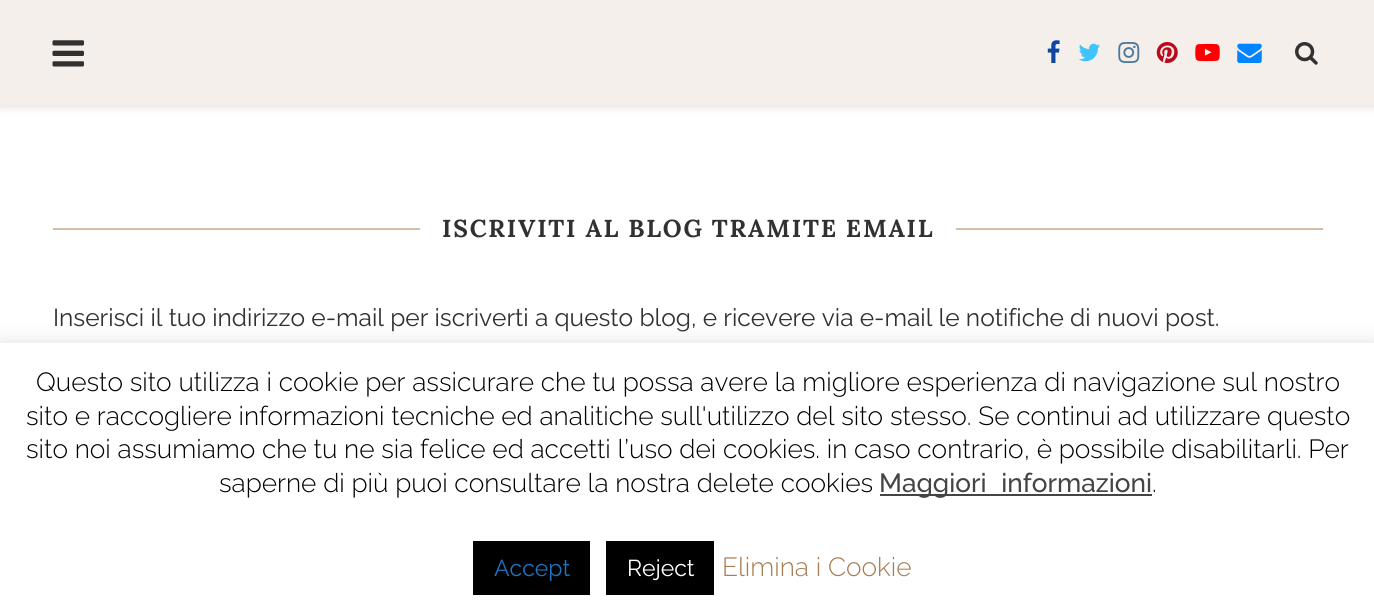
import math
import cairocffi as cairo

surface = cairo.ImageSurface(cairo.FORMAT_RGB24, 1374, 616)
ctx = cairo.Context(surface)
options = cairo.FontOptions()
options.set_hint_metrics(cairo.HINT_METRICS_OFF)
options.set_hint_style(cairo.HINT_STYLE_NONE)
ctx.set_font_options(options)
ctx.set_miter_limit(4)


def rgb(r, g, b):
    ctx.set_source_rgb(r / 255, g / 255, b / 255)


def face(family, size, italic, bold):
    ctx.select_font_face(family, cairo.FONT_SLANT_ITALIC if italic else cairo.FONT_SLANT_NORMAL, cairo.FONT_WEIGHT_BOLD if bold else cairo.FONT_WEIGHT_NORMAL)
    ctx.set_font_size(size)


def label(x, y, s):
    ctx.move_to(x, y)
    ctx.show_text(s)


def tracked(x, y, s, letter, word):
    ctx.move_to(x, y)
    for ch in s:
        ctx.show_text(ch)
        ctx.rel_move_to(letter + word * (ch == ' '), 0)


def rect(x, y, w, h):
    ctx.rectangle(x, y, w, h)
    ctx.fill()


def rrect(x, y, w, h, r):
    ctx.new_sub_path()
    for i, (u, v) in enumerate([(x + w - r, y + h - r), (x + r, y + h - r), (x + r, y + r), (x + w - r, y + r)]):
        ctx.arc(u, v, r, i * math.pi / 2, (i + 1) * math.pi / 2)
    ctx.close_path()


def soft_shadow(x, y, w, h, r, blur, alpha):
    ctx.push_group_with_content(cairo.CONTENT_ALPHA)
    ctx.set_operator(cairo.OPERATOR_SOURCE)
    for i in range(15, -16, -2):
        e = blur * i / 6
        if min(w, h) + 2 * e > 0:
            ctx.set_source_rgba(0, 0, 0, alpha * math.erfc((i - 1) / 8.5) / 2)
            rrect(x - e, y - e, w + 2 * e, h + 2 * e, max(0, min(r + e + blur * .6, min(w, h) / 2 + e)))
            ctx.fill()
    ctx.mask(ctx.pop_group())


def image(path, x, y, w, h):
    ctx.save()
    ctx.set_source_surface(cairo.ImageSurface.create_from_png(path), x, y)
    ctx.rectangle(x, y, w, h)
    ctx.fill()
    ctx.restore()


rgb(255, 255, 255)
ctx.paint()
rgb(190, 190, 190)
soft_shadow(0, 2, 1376, 105, 0, 4.5, 0.46)
rgb(244, 239, 234)
rect(0, 0, 1374, 105)
image('image0.png', 52, 40, 32, 27)
image('image1.png', 1047, 40, 13, 23)
image('image2.png', 1078, 43, 22, 19)
image('image3.png', 1118, 42, 22, 21)
image('image4.png', 1156, 42, 22, 21)
image('image5.png', 1195, 43, 25, 19)
image('image6.png', 1237, 43, 25, 20)
image('image7.png', 1295, 42, 23, 23)
rgb(211, 190, 169)
rect(53, 228, 367, 2)
face('Lora', 24.5, 0, 1)
rgb(49, 49, 49)
tracked(442, 237, 'ISCRIVITI AL BLOG TRAMITE EMAIL', 1.75, 0)
rgb(211, 190, 169)
rect(956, 228, 367, 2)
face('Raleway', 24.5, 0, 0)
rgb(49, 49, 49)
label(53, 326, 'Inserisci il tuo indirizzo e-mail per iscriverti a questo blog, e ricevere via e-mail le notifiche di nuovi post.')
rgb(172, 171, 171)
soft_shadow(0, 341, 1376, 273, 0, 9, 0.3)
rgb(255, 255, 255)
rect(0, 343, 1374, 273)
face('Raleway Light', 26.25, 0, 0)
rgb(0, 0, 0)
label(36, 391, 'Questo sito utilizza i cookie per assicurare che tu possa avere la migliore esperienza di navigazione sul nostro')
label(26, 425, 'sito e raccogliere informazioni tecniche ed analitiche sull\'utilizzo del sito stesso. Se continui ad utilizzare questo')
label(26, 458, 'sito noi assumiamo che tu ne sia felice ed accetti l’uso dei cookies. in caso contrario, è possibile disabilitarli. Per')
label(219, 492, 'saperne di più puoi consultare la nostra delete cookies')
rgb(68, 68, 68)
rect(880, 494, 272, 2)
face('Raleway Medium', 26.25, 0, 0)
tracked(879, 492, 'Maggiori informazioni', 0, 8)
face('Raleway Light', 26.25, 0, 0)
rgb(0, 0, 0)
label(1152, 492, '.')
rect(473, 541, 117, 54)
face('Raleway', 23, 0, 0)
rgb(30, 115, 190)
label(494, 576, 'Accept')
rgb(0, 0, 0)
rect(606, 541, 108, 54)
rgb(255, 255, 255)
label(627, 576, 'Reject')
face('Raleway Light', 26.25, 0, 0)
rgb(166, 124, 82)
label(722, 576, 'Elimina i Cookie')
surface.write_to_png('render.png')
